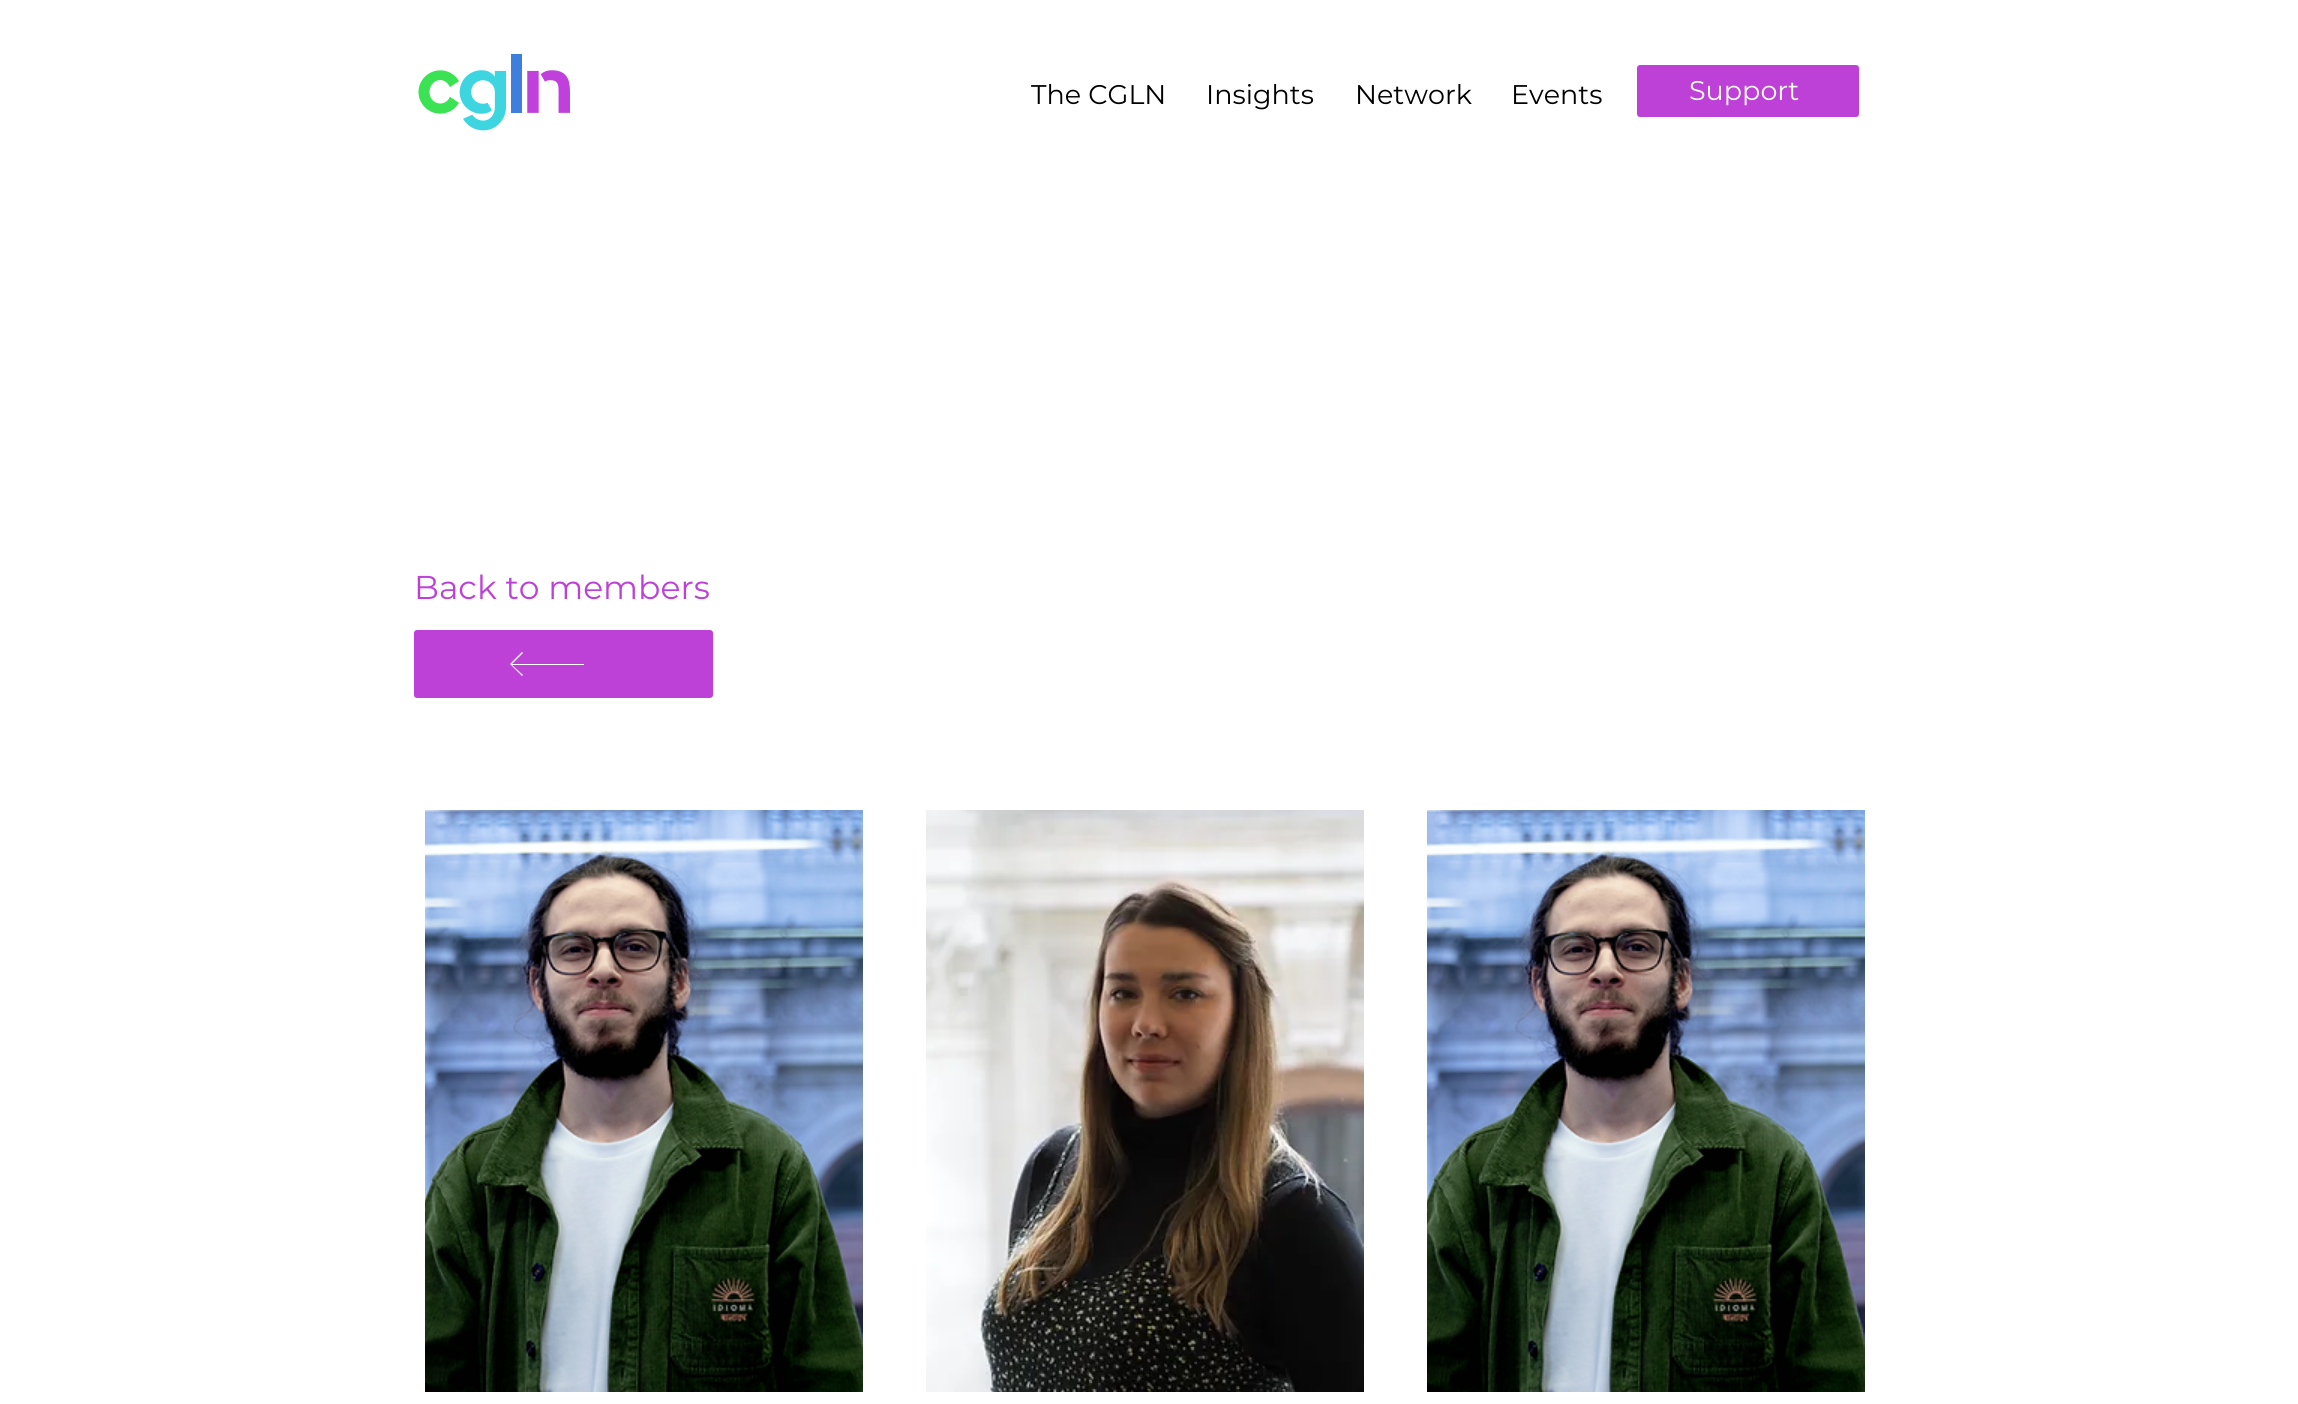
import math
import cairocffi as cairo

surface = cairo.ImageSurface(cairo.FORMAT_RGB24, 2298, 1404)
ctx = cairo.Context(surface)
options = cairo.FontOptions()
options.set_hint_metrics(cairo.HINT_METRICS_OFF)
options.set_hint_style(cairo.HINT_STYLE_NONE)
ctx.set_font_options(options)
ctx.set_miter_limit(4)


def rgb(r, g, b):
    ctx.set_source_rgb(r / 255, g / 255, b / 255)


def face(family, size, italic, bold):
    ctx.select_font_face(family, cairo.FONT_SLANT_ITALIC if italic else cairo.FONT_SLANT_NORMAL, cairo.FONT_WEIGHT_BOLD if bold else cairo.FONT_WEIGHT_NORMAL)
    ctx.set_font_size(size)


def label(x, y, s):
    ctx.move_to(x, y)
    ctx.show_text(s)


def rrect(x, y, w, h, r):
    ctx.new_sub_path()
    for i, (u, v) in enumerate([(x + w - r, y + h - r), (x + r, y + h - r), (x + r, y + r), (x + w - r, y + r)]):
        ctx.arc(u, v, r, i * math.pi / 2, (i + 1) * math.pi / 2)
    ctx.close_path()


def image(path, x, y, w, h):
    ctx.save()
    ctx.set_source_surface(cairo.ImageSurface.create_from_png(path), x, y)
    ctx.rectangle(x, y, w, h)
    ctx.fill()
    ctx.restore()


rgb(255, 255, 255)
ctx.paint()
image('image0.png', 418, 54, 152, 77)
face('Montserrat', 27, 0, 0)
rgb(0, 0, 0)
label(1031, 104, 'The CGLN')
label(1206, 104, 'Insights')
label(1355, 104, 'Network')
label(1511, 104, 'Events')
rgb(189, 64, 215)
rrect(1637, 65, 222, 52, 3)
ctx.fill()
rgb(255, 255, 255)
label(1689, 100, 'Support')
face('Montserrat', 33, 0, 0)
rgb(189, 64, 215)
label(414, 599, 'Back to members')
rrect(414, 630, 299, 68, 3)
ctx.fill()
rgb(255, 255, 255)
ctx.new_path()
ctx.move_to(522, 676)
ctx.line_to(523, 675)
ctx.line_to(512, 665)
ctx.line_to(584, 665)
ctx.line_to(584, 664)
ctx.line_to(512, 664)
ctx.line_to(523, 653)
ctx.line_to(522, 652)
ctx.line_to(510, 664)
ctx.close_path()
ctx.fill()
image('image1.png', 425, 810, 438, 582)
image('image2.png', 926, 810, 438, 582)
image('image3.png', 1427, 810, 438, 582)
surface.write_to_png('render.png')
